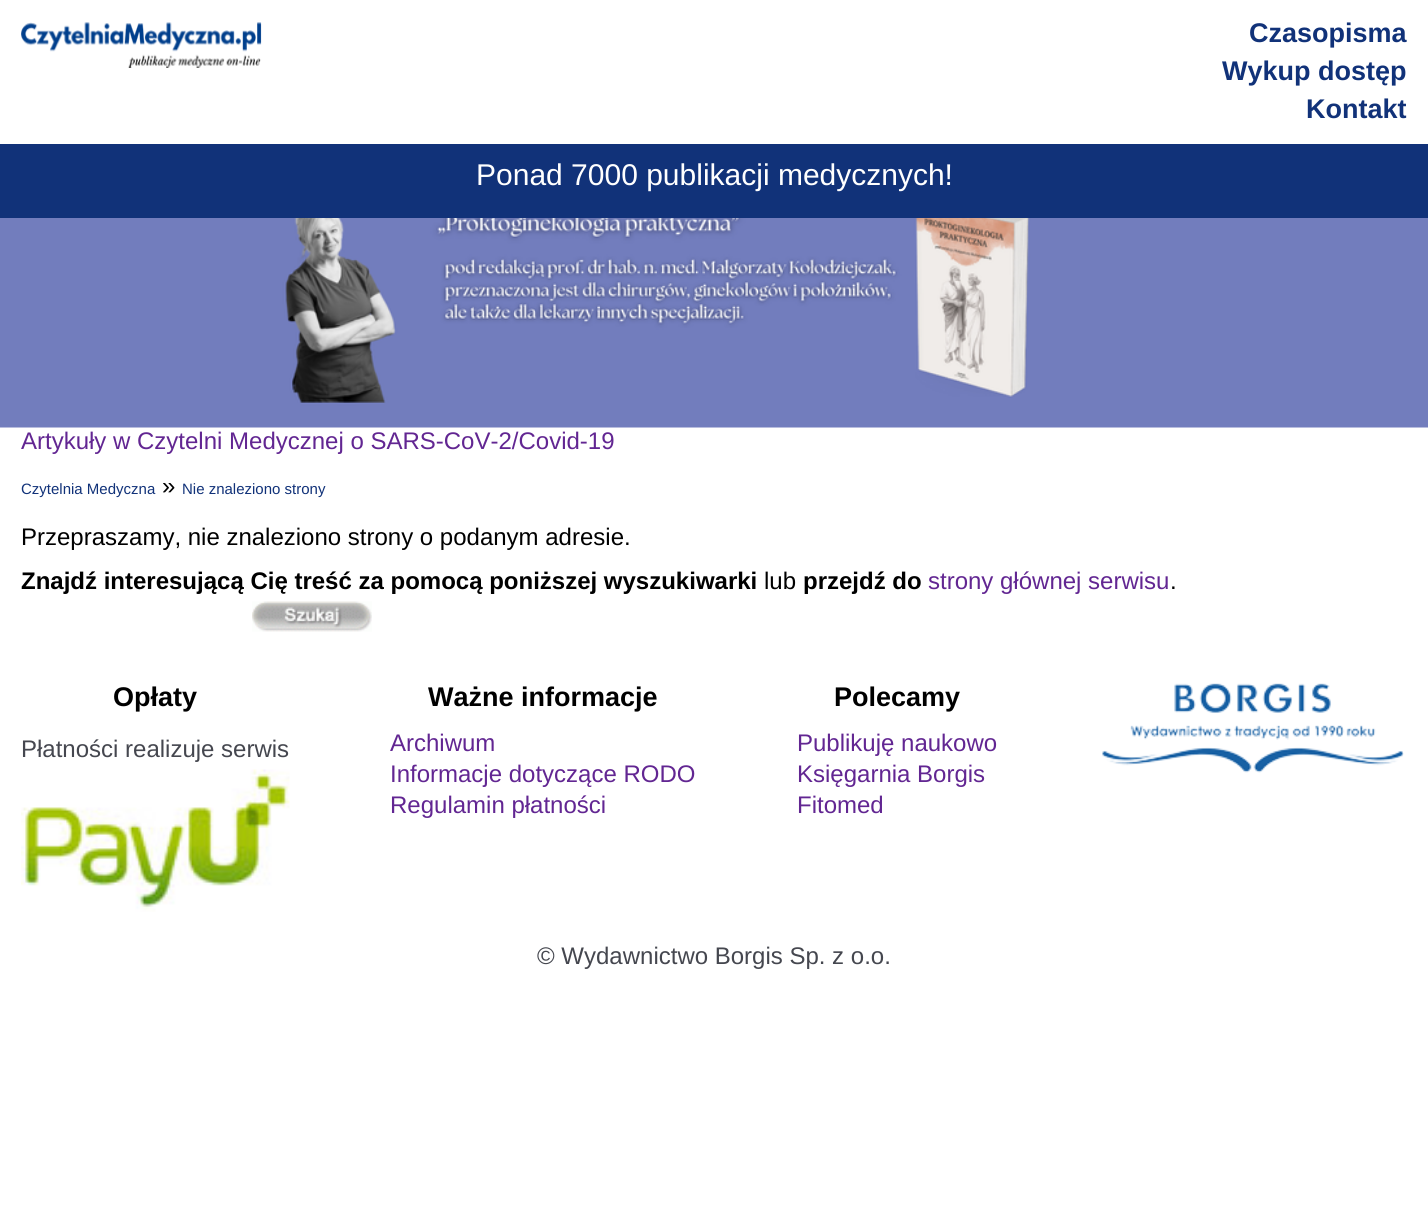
import math
import cairocffi as cairo

surface = cairo.ImageSurface(cairo.FORMAT_RGB24, 1428, 1228)
ctx = cairo.Context(surface)
options = cairo.FontOptions()
options.set_hint_metrics(cairo.HINT_METRICS_OFF)
options.set_hint_style(cairo.HINT_STYLE_NONE)
ctx.set_font_options(options)
ctx.set_miter_limit(4)


def rgb(r, g, b):
    ctx.set_source_rgb(r / 255, g / 255, b / 255)


def face(family, size, italic, bold):
    ctx.select_font_face(family, cairo.FONT_SLANT_ITALIC if italic else cairo.FONT_SLANT_NORMAL, cairo.FONT_WEIGHT_BOLD if bold else cairo.FONT_WEIGHT_NORMAL)
    ctx.set_font_size(size)


def label(x, y, s):
    ctx.move_to(x, y)
    ctx.show_text(s)


def rect(x, y, w, h):
    ctx.rectangle(x, y, w, h)
    ctx.fill()


def image(path, x, y, w, h):
    ctx.save()
    ctx.set_source_surface(cairo.ImageSurface.create_from_png(path), x, y)
    ctx.rectangle(x, y, w, h)
    ctx.fill()
    ctx.restore()


rgb(255, 255, 255)
ctx.paint()
rgb(17, 50, 121)
rect(0, 144, 1428, 74)
image('image0.png', 21, 22, 241, 46)
face('Liberation Sans', 27, 0, 1)
label(1249, 42, 'Czasopisma')
label(1222, 80, 'Wykup dostęp')
label(1306, 118, 'Kontakt')
face('Liberation Sans', 30, 0, 0)
rgb(255, 255, 255)
label(476, 185, 'Ponad 7000 publikacji medycznych!')
image('image1.png', 0, 218, 1428, 210)
face('Liberation Sans', 24, 0, 0)
rgb(98, 38, 146)
label(21, 449, 'Artykuły w Czytelni Medycznej o SARS-CoV-2/Covid-19')
face('Liberation Sans', 15, 0, 0)
rgb(17, 50, 121)
label(21, 494, 'Czytelnia Medyczna')
face('Liberation Sans', 24, 0, 0)
rgb(0, 0, 0)
label(162, 494, '»')
face('Liberation Sans', 15, 0, 0)
rgb(17, 50, 121)
label(182, 494, 'Nie znaleziono strony')
face('Liberation Sans', 24, 0, 0)
rgb(0, 0, 0)
label(21, 545, 'Przepraszamy, nie znaleziono strony o podanym adresie.')
face('Liberation Sans', 24, 0, 1)
label(21, 589, 'Znajdź interesującą Cię treść za pomocą poniższej wyszukiwarki')
face('Liberation Sans', 24, 0, 0)
label(764, 589, 'lub')
face('Liberation Sans', 24, 0, 1)
label(803, 589, 'przejdź do')
face('Liberation Sans', 24, 0, 0)
rgb(98, 38, 146)
label(928, 589, 'strony głównej serwisu')
rgb(0, 0, 0)
label(1170, 589, '.')
image('image2.png', 252, 601, 120, 31)
face('Liberation Sans', 27, 0, 1)
label(113, 706, 'Opłaty')
face('Liberation Sans', 24, 0, 0)
rgb(69, 71, 79)
label(21, 757, 'Płatności realizuje serwis')
image('image3.png', 21, 769, 269, 143)
face('Liberation Sans', 27, 0, 1)
rgb(0, 0, 0)
label(428, 706, 'Ważne informacje')
face('Liberation Sans', 24, 0, 0)
rgb(98, 38, 146)
label(390, 751, 'Archiwum')
label(390, 782, 'Informacje dotyczące RODO')
label(390, 813, 'Regulamin płatności')
face('Liberation Sans', 27, 0, 1)
rgb(0, 0, 0)
label(834, 706, 'Polecamy')
face('Liberation Sans', 24, 0, 0)
rgb(98, 38, 146)
label(797, 751, 'Publikuję naukowo')
label(797, 782, 'Księgarnia Borgis')
label(797, 813, 'Fitomed')
image('image4.png', 1102, 683, 302, 90)
rgb(69, 71, 79)
label(537, 964, '© Wydawnictwo Borgis Sp. z o.o.')
surface.write_to_png('render.png')
